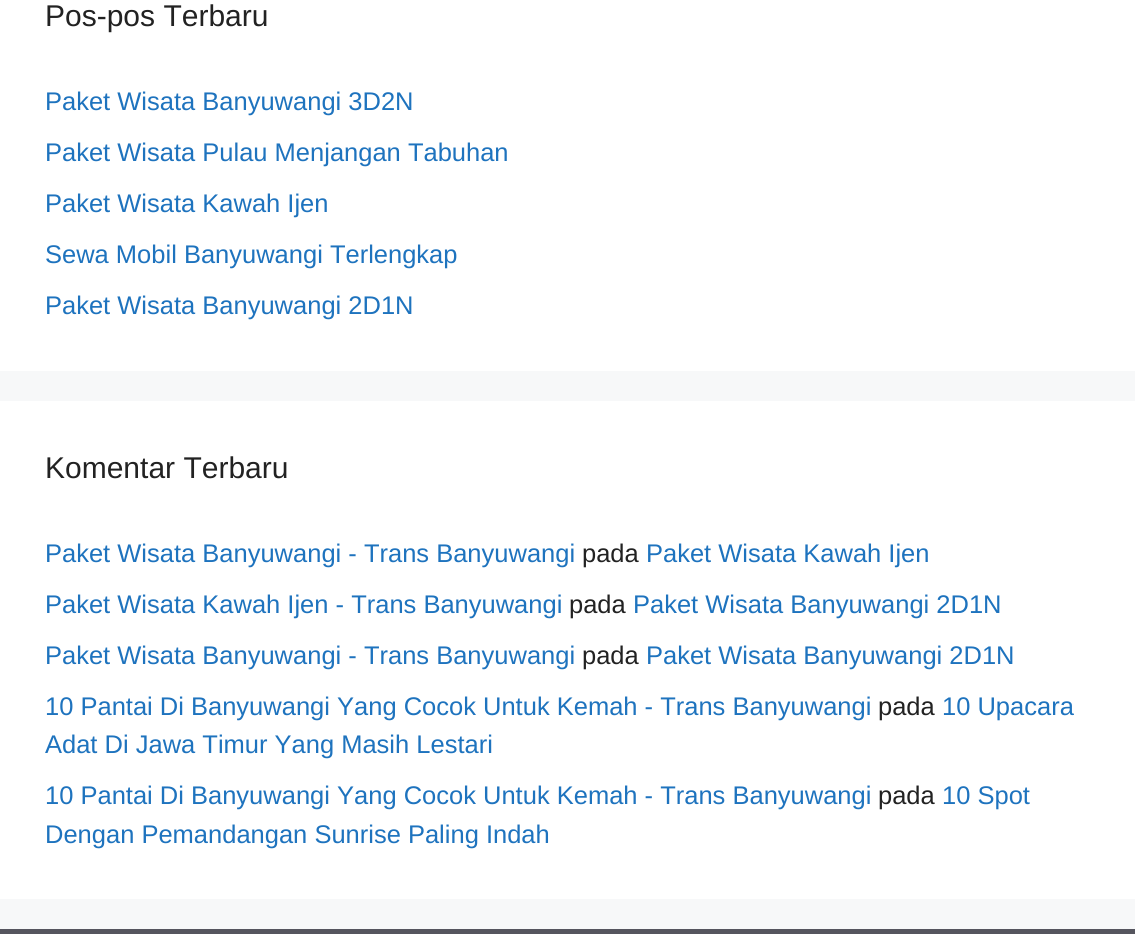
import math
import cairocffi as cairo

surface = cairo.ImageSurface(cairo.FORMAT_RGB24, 1135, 934)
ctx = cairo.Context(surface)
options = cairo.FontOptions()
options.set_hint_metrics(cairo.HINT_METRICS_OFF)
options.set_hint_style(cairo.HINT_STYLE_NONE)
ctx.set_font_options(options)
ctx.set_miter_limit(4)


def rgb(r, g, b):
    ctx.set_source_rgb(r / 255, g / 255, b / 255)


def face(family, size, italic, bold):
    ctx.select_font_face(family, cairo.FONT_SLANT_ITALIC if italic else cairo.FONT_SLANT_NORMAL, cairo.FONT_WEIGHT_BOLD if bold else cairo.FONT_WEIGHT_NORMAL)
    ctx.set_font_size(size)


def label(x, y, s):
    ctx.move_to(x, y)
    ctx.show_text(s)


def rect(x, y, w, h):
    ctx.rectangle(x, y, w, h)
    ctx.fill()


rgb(247, 248, 249)
ctx.paint()
rgb(255, 255, 255)
rect(0, 0, 1135, 371)
face('Liberation Sans', 30, 0, 0)
rgb(34, 34, 34)
label(45, 26, 'Pos-pos Terbaru')
face('Liberation Sans', 25.5, 0, 0)
rgb(30, 115, 190)
label(45, 110, 'Paket Wisata Banyuwangi 3D2N')
label(45, 161, 'Paket Wisata Pulau Menjangan Tabuhan')
label(45, 212, 'Paket Wisata Kawah Ijen')
label(45, 263, 'Sewa Mobil Banyuwangi Terlengkap')
label(45, 314, 'Paket Wisata Banyuwangi 2D1N')
rgb(255, 255, 255)
rect(0, 401, 1135, 498)
face('Liberation Sans', 30, 0, 0)
rgb(34, 34, 34)
label(45, 478, 'Komentar Terbaru')
face('Liberation Sans', 25.5, 0, 0)
rgb(30, 115, 190)
label(45, 562, 'Paket Wisata Banyuwangi - Trans Banyuwangi')
rgb(34, 34, 34)
label(582, 562, 'pada')
rgb(30, 115, 190)
label(646, 562, 'Paket Wisata Kawah Ijen')
label(45, 613, 'Paket Wisata Kawah Ijen - Trans Banyuwangi')
rgb(34, 34, 34)
label(569, 613, 'pada')
rgb(30, 115, 190)
label(633, 613, 'Paket Wisata Banyuwangi 2D1N')
label(45, 664, 'Paket Wisata Banyuwangi - Trans Banyuwangi')
rgb(34, 34, 34)
label(582, 664, 'pada')
rgb(30, 115, 190)
label(646, 664, 'Paket Wisata Banyuwangi 2D1N')
label(45, 715, '10 Pantai Di Banyuwangi Yang Cocok Untuk Kemah - Trans Banyuwangi')
rgb(34, 34, 34)
label(878, 715, 'pada')
rgb(30, 115, 190)
label(942, 715, '10 Upacara')
label(45, 753, 'Adat Di Jawa Timur Yang Masih Lestari')
label(45, 804, '10 Pantai Di Banyuwangi Yang Cocok Untuk Kemah - Trans Banyuwangi')
rgb(34, 34, 34)
label(878, 804, 'pada')
rgb(30, 115, 190)
label(942, 804, '10 Spot')
label(45, 843, 'Dengan Pemandangan Sunrise Paling Indah')
rgb(85, 85, 94)
rect(0, 929, 1135, 5)
surface.write_to_png('render.png')
